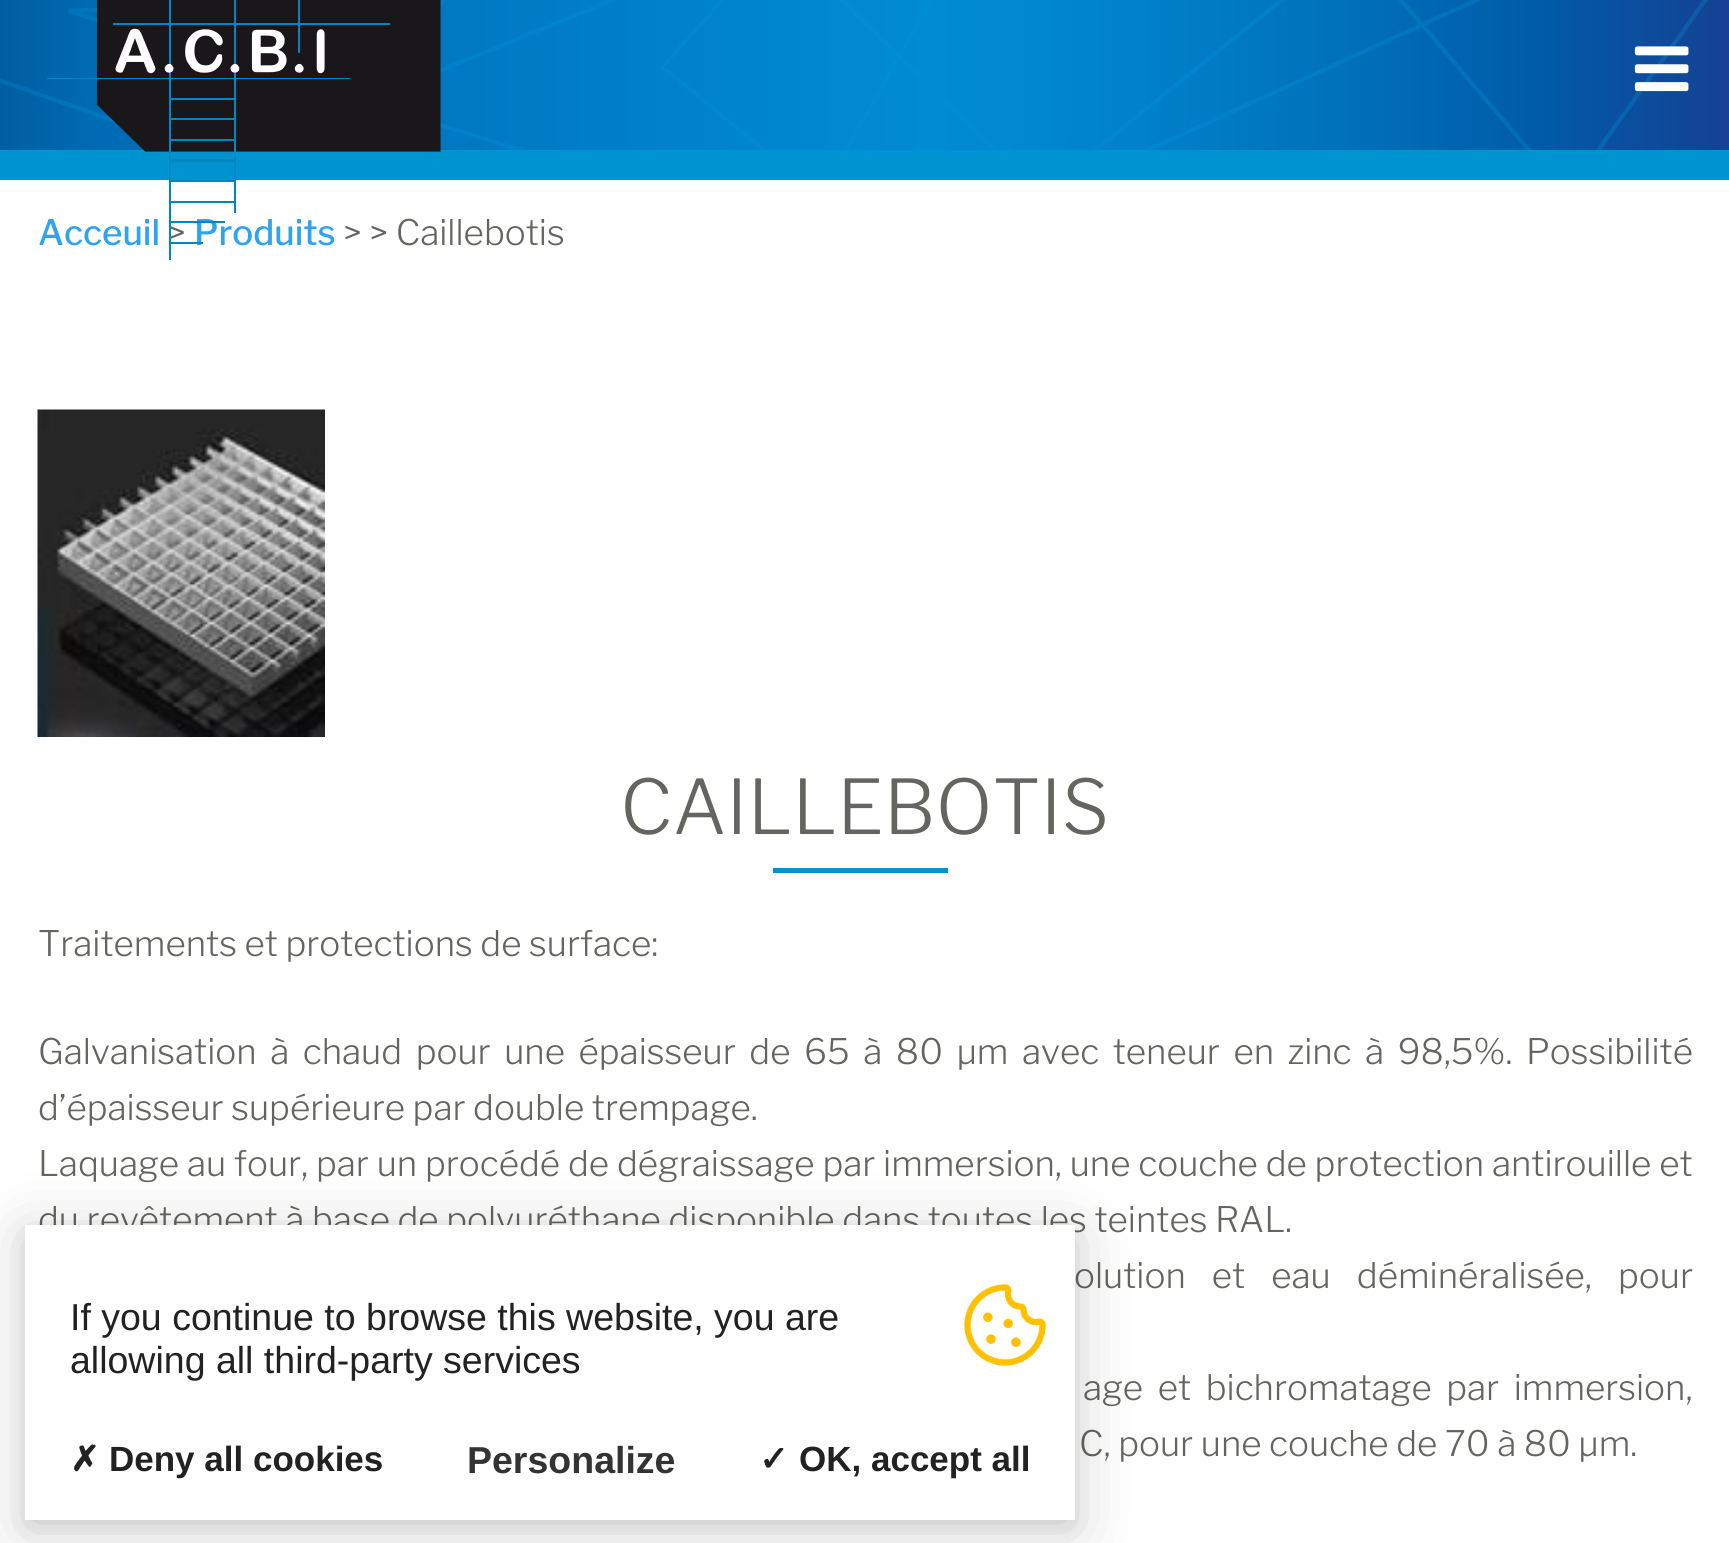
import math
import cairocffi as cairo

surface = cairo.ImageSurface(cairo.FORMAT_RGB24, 1729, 1543)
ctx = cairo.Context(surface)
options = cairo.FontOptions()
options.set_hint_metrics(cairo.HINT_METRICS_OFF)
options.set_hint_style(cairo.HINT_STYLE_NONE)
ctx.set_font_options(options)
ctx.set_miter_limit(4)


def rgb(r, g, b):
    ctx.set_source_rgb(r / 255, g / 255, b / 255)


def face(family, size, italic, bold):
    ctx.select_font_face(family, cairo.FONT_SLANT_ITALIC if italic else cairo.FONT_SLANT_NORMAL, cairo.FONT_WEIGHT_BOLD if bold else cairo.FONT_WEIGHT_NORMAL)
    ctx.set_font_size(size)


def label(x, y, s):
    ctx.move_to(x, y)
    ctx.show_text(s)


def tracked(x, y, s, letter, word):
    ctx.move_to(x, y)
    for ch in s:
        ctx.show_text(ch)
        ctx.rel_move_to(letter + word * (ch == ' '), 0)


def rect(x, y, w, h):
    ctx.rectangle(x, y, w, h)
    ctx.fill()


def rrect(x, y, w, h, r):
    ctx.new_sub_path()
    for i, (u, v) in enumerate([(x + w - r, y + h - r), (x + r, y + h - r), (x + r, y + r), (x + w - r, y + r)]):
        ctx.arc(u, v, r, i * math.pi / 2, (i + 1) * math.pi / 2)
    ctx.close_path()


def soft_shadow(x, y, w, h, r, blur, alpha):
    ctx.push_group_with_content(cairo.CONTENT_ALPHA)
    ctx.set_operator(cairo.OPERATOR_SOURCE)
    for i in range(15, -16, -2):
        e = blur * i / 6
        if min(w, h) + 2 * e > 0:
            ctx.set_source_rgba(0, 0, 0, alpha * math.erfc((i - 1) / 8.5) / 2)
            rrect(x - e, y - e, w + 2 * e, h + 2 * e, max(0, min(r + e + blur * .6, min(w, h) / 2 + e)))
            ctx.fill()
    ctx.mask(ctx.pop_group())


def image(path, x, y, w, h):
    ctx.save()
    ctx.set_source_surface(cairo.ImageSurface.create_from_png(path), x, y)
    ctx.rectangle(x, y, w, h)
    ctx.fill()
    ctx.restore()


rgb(255, 255, 255)
ctx.paint()
gradient = cairo.LinearGradient(-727, 74, 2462, 74)
gradient.add_color_stop_rgba(0, 0, 0, 0, 1)
gradient.add_color_stop_rgba(0.26, 0, 0.42, 0.71, 1)
gradient.add_color_stop_rgba(0.33, 0, 0.451, 0.741, 1)
gradient.add_color_stop_rgba(0.49, 0, 0.533, 0.816, 1)
gradient.add_color_stop_rgba(0.52, 0, 0.545, 0.824, 1)
gradient.add_color_stop_rgba(0.55, 0, 0.533, 0.812, 1)
gradient.add_color_stop_rgba(0.59, 0, 0.502, 0.784, 1)
gradient.add_color_stop_rgba(0.65, 0, 0.443, 0.733, 1)
gradient.add_color_stop_rgba(0.71, 0, 0.357, 0.659, 1)
gradient.add_color_stop_rgba(0.77, 0.086, 0.255, 0.58, 1)
gradient.add_color_stop_rgba(0.82, 0.114, 0.204, 0.502, 1)
gradient.add_color_stop_rgba(0.96, 0.114, 0.082, 0.306, 1)
gradient.add_color_stop_rgba(1, 0.098, 0.031, 0.235, 1)
ctx.set_source(gradient)
rect(0, 0, 1729, 150)
ctx.save()
ctx.rectangle(0, 0, 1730, 150)
ctx.clip()
ctx.new_path()
ctx.move_to(-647, -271)
ctx.line_to(288, 529)
ctx.line_to(450, -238.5)
ctx.line_to(-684, 123)
ctx.line_to(-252, 354)
ctx.line_to(733.5, -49.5)
ctx.line_to(-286, -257)
ctx.line_to(-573, -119.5)
ctx.line_to(595, 288.5)
ctx.line_to(-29.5, 503.5)
ctx.line_to(635.5, -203.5)
ctx.line_to(1047.5, -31)
ctx.line_to(68.5, 11)
ctx.line_to(797.5, 235)
ctx.line_to(1034, -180)
ctx.line_to(767, -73)
ctx.line_to(1044, 197.5)
ctx.line_to(1621, -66)
ctx.line_to(1030.5, -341)
ctx.line_to(662.5, 67)
ctx.line_to(1115, 438)
ctx.line_to(1570.5, 433.5)
ctx.line_to(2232, -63.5)
ctx.line_to(1543.5, -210.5)
ctx.line_to(899, 307.5)
ctx.line_to(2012.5, 179)
ctx.line_to(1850.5, -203.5)
ctx.line_to(1476, 321.5)
ctx.line_to(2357, 151)
ctx.line_to(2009, -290)
ctx.line_to(1287, -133.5)
ctx.line_to(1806.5, 475.5)
ctx.set_source_rgba(0, 0.576, 0.839, 0.3)
ctx.set_line_width(4.2)
ctx.stroke()
ctx.restore()
rgb(0, 147, 210)
rect(0, 150, 1729, 30)
face('Libre Franklin Medium', 35, 0, 0)
rgb(46, 163, 242)
label(38, 245, 'Acceuil')
face('Libre Franklin Light', 35, 0, 0)
rgb(100, 101, 97)
label(167, 245, '>')
face('Libre Franklin Medium', 35, 0, 0)
rgb(46, 163, 242)
label(194, 245, 'Produits')
face('Libre Franklin Light', 35, 0, 0)
rgb(100, 101, 97)
label(343, 245, '> > Caillebotis')
image('image0.png', 47, 0, 394, 260)
image('image1.png', 1634, 46, 55, 46)
image('image2.png', 37, 409, 288, 328)
face('Libre Franklin Light', 75, 0, 0)
label(620, 834, 'CAILLEBOTIS')
rgb(0, 147, 210)
rect(773, 868, 175, 5)
face('Libre Franklin Light', 35, 0, 0)
rgb(100, 101, 97)
label(38, 956, 'Traitements et protections de surface:')
tracked(38, 1064, 'Galvanisation à chaud pour une épaisseur de 65 à 80 µm avec teneur en zinc à 98,5%. Possibilité', 0, 6)
label(38, 1120, 'd’épaisseur supérieure par double trempage.')
tracked(38, 1176, 'Laquage au four, par un procédé de dégraissage par immersion, une couche de protection antirouille et', 0, 0.25)
label(38, 1232, 'du revêtement à base de polyuréthane disponible dans toutes les teintes RAL.')
tracked(1074, 1288, 'olution et eau déminéralisée, pour', 0, 18.5)
tracked(1083, 1400, 'age et bichromatage par immersion,', 0, 7)
label(1079, 1456, 'C, pour une couche de 70 à 80 µm.')
rgb(0, 0, 0)
soft_shadow(25, 1230, 1050, 295, 0, 9, 0.06)
soft_shadow(25, 1235, 1050, 295, 0, 30, 0.2)
rgb(255, 255, 255)
rect(25, 1225, 1050, 295)
face('Liberation Sans', 37.5, 0, 0)
rgb(34, 34, 34)
label(70, 1330, 'If you continue to browse this website, you are')
image('image3.png', 964, 1284, 82, 82)
label(70, 1373, 'allowing all third-party services')
face('DejaVu Sans', 35, 0, 1)
label(70, 1471, '✗')
face('Liberation Sans', 35, 0, 1)
label(109, 1471, 'Deny all cookies')
face('Liberation Sans', 37.5, 0, 1)
rgb(51, 51, 51)
label(467, 1473, 'Personalize')
face('DejaVu Sans', 35, 0, 1)
rgb(34, 34, 34)
label(759, 1471, '✓')
face('Liberation Sans', 35, 0, 1)
label(799, 1471, 'OK, accept all')
surface.write_to_png('render.png')
